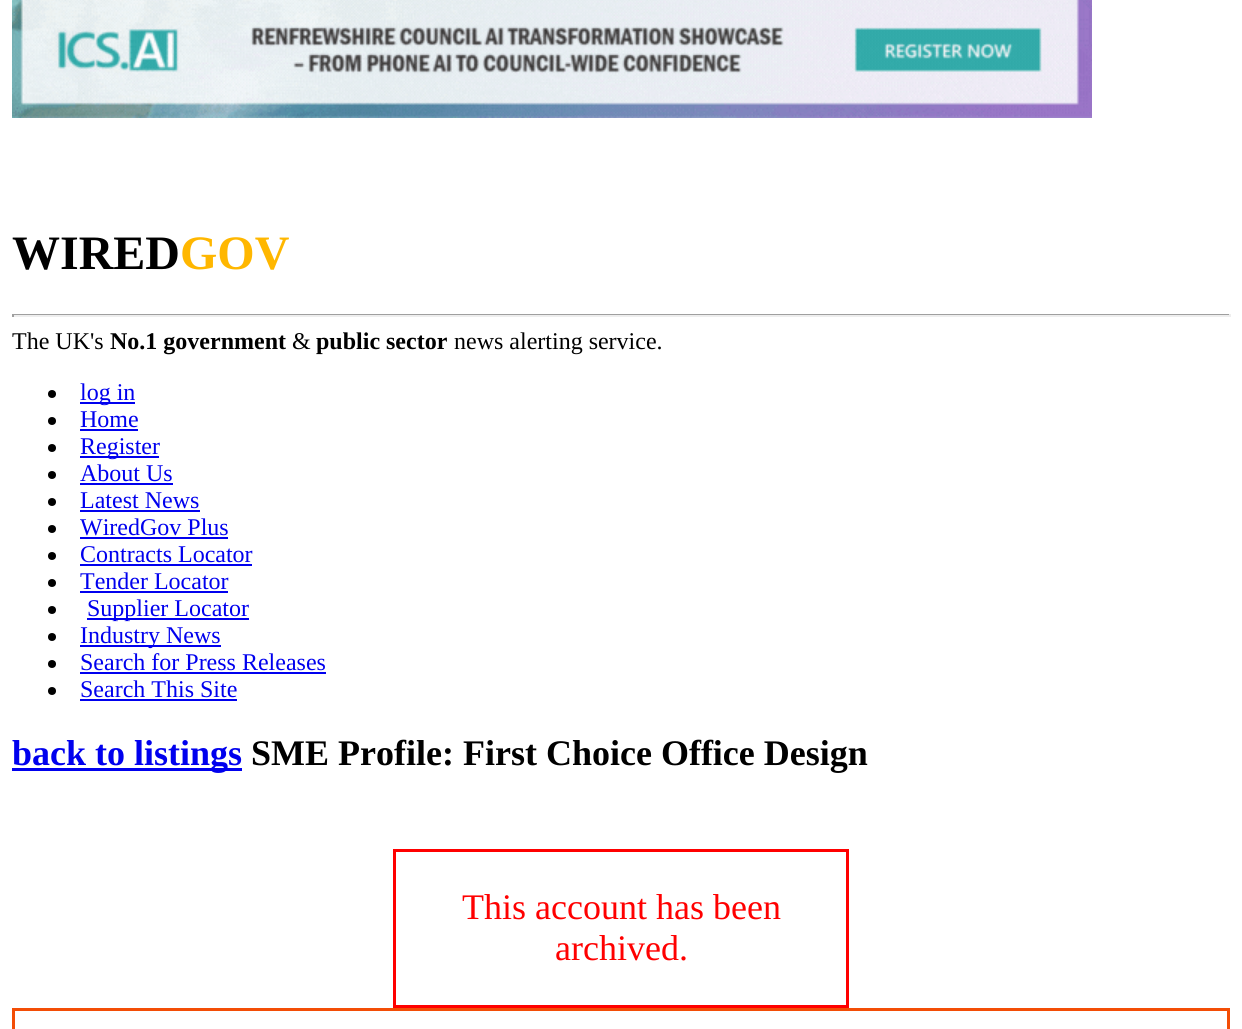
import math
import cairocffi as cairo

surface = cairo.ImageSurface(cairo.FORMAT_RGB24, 1242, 1029)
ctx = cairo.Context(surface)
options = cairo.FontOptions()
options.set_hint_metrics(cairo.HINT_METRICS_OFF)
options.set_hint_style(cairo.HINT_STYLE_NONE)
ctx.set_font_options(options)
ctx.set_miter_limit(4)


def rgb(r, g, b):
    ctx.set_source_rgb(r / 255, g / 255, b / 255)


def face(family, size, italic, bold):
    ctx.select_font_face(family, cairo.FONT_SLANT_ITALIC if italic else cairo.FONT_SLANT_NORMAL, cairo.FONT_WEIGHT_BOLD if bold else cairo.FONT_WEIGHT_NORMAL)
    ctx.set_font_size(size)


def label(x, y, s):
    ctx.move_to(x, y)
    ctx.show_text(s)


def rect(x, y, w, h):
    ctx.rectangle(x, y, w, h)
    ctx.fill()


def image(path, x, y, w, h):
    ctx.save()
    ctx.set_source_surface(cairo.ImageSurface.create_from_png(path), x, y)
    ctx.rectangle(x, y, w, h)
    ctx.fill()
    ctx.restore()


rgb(255, 255, 255)
ctx.paint()
image('image0.png', 12, 0, 1080, 118)
face('Liberation Serif', 48, 0, 1)
rgb(0, 0, 0)
label(12, 269, 'WIRED')
rgb(255, 183, 0)
label(180, 269, 'GOV')
rgb(159, 159, 159)
rect(12, 314, 1218, 1)
rgb(238, 238, 238)
rect(1229, 314, 2, 3)
rect(12, 315, 1218, 2)
rgb(159, 159, 159)
rect(12, 314, 2, 3)
face('Liberation Serif', 24, 0, 0)
rgb(0, 0, 0)
label(12, 349, 'The UK\'s')
face('Liberation Serif', 24, 0, 1)
label(110, 349, 'No.1 government')
face('Liberation Serif', 24, 0, 0)
label(292, 349, '&')
face('Liberation Serif', 24, 0, 1)
label(316, 349, 'public sector')
face('Liberation Serif', 24, 0, 0)
label(454, 349, 'news alerting service.')
ctx.new_path()
ctx.arc(52, 394, 4, 0, 2 * math.pi)
ctx.fill()
rgb(0, 0, 238)
rect(80, 402, 55, 2)
label(80, 400, 'log in')
rgb(0, 0, 0)
ctx.new_path()
ctx.arc(52, 421, 4, 0, 2 * math.pi)
ctx.fill()
rgb(0, 0, 238)
label(80, 427, 'Home')
rect(80, 429, 58, 2)
rgb(0, 0, 0)
ctx.new_path()
ctx.arc(52, 448, 4, 0, 2 * math.pi)
ctx.fill()
rgb(0, 0, 238)
rect(80, 456, 79, 2)
label(80, 454, 'Register')
rgb(0, 0, 0)
ctx.new_path()
ctx.arc(52, 475, 4, 0, 2 * math.pi)
ctx.fill()
rgb(0, 0, 238)
label(80, 481, 'About Us')
rect(80, 483, 93, 2)
rgb(0, 0, 0)
ctx.new_path()
ctx.arc(52, 502, 4, 0, 2 * math.pi)
ctx.fill()
rgb(0, 0, 238)
label(80, 508, 'Latest News')
rect(80, 510, 120, 2)
rgb(0, 0, 0)
ctx.new_path()
ctx.arc(52, 529, 4, 0, 2 * math.pi)
ctx.fill()
rgb(0, 0, 238)
label(80, 535, 'WiredGov Plus')
rect(80, 537, 148, 2)
rgb(0, 0, 0)
ctx.new_path()
ctx.arc(52, 556, 4, 0, 2 * math.pi)
ctx.fill()
rgb(0, 0, 238)
label(80, 562, 'Contracts Locator')
rect(80, 564, 172, 2)
rgb(0, 0, 0)
ctx.new_path()
ctx.arc(52, 583, 4, 0, 2 * math.pi)
ctx.fill()
rgb(0, 0, 238)
label(80, 589, 'Tender Locator')
rect(80, 591, 148, 2)
rgb(0, 0, 0)
ctx.new_path()
ctx.arc(52, 610, 4, 0, 2 * math.pi)
ctx.fill()
rgb(0, 0, 238)
rect(87, 618, 162, 2)
label(87, 616, 'Supplier Locator')
rgb(0, 0, 0)
ctx.new_path()
ctx.arc(52, 637, 4, 0, 2 * math.pi)
ctx.fill()
rgb(0, 0, 238)
rect(80, 645, 141, 2)
label(80, 643, 'Industry News')
rgb(0, 0, 0)
ctx.new_path()
ctx.arc(52, 664, 4, 0, 2 * math.pi)
ctx.fill()
rgb(0, 0, 238)
label(80, 670, 'Search for Press Releases')
rect(80, 672, 246, 2)
rgb(0, 0, 0)
ctx.new_path()
ctx.arc(52, 691, 4, 0, 2 * math.pi)
ctx.fill()
rgb(0, 0, 238)
label(80, 697, 'Search This Site')
rect(80, 699, 157, 2)
rect(12, 768, 230, 3)
face('Liberation Serif', 36, 0, 1)
label(12, 765, 'back to listings')
rgb(0, 0, 0)
label(251, 765, 'SME Profile: First Choice Office Design')
ctx.rectangle(394.5, 850.5, 453, 156)
rgb(255, 0, 0)
ctx.set_line_width(3)
ctx.stroke()
face('Liberation Serif', 36, 0, 0)
label(462, 919, 'This account has been')
label(555, 960, 'archived.')
ctx.rectangle(13.5, 1009.5, 1215, 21)
rgb(243, 77, 6)
ctx.stroke()
surface.write_to_png('render.png')
